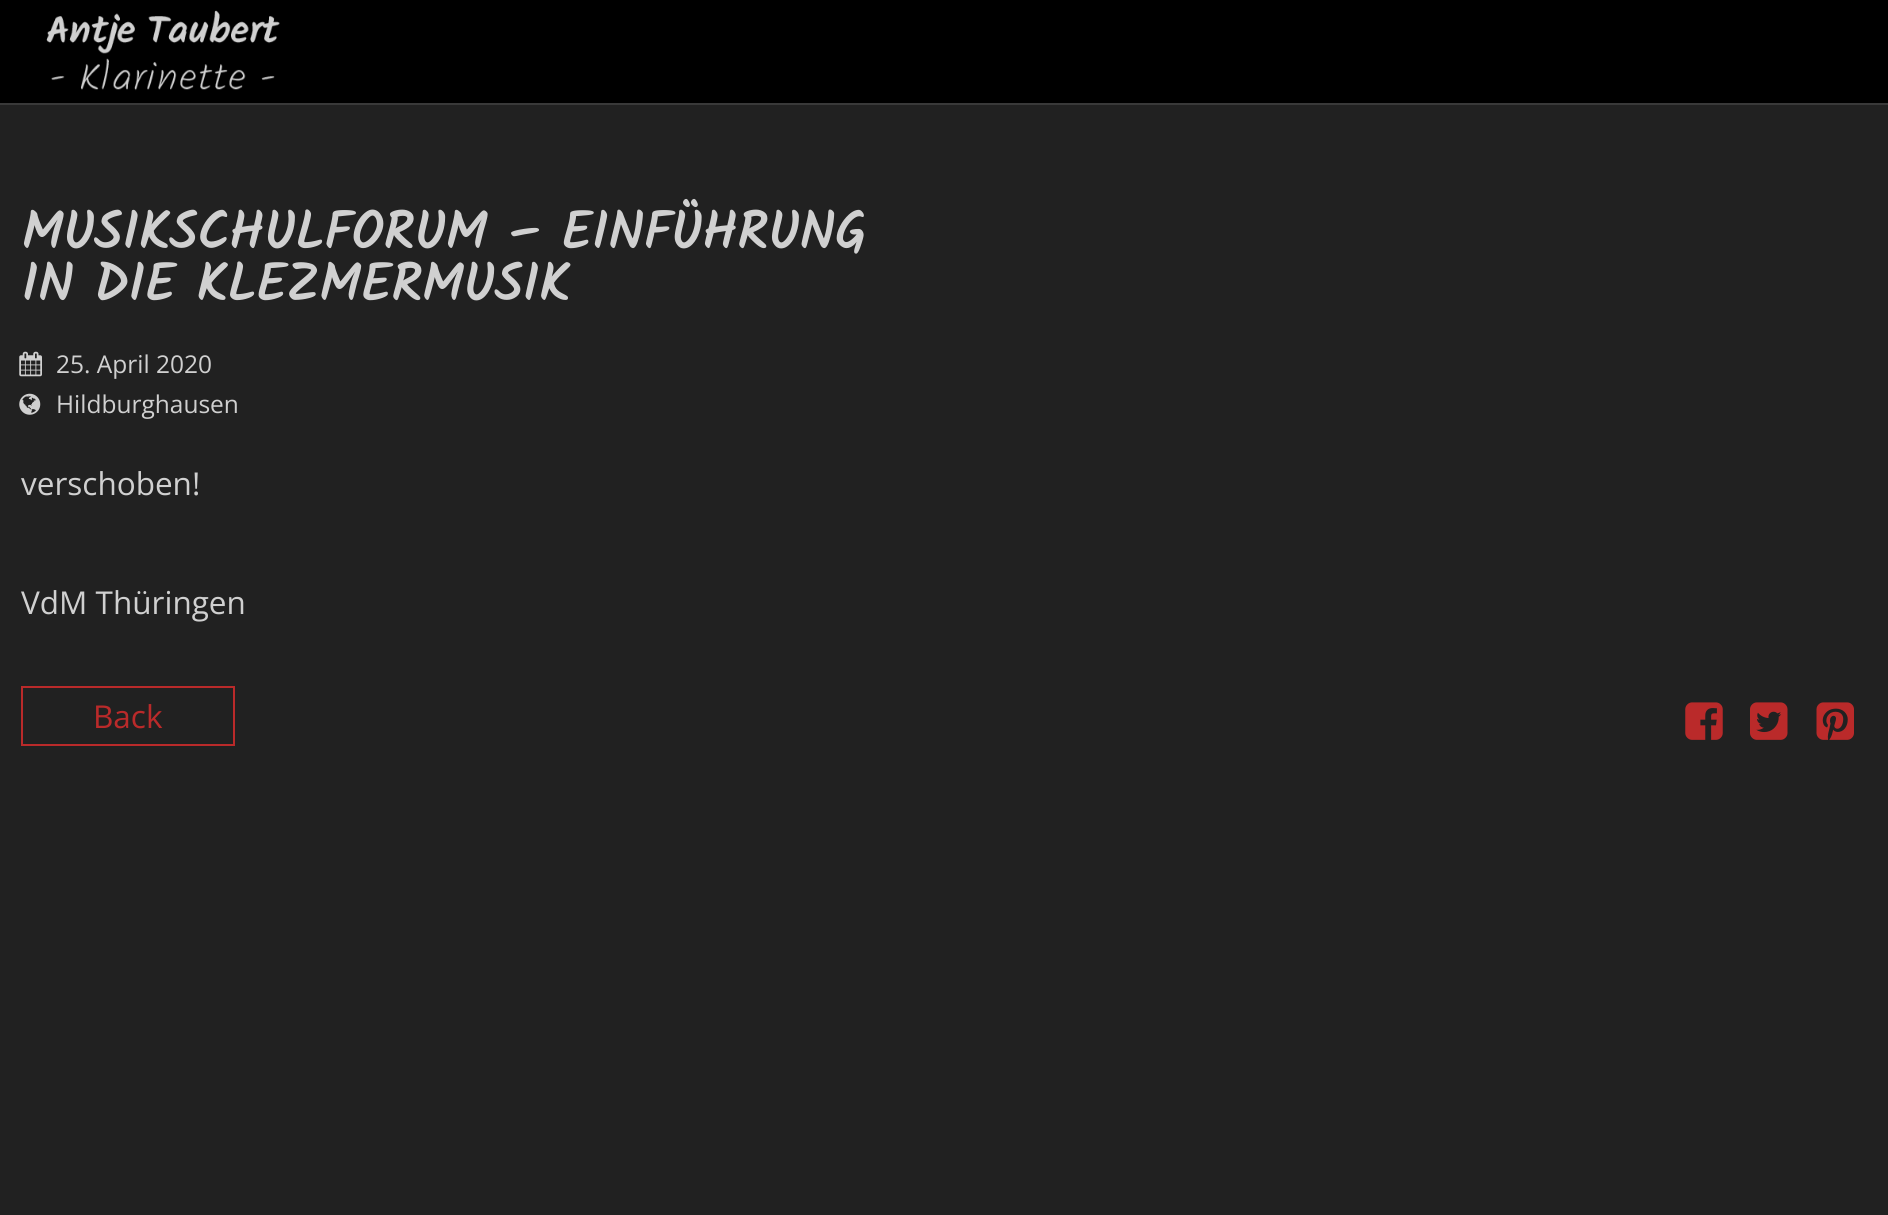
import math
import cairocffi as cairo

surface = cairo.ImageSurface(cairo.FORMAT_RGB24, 1888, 1215)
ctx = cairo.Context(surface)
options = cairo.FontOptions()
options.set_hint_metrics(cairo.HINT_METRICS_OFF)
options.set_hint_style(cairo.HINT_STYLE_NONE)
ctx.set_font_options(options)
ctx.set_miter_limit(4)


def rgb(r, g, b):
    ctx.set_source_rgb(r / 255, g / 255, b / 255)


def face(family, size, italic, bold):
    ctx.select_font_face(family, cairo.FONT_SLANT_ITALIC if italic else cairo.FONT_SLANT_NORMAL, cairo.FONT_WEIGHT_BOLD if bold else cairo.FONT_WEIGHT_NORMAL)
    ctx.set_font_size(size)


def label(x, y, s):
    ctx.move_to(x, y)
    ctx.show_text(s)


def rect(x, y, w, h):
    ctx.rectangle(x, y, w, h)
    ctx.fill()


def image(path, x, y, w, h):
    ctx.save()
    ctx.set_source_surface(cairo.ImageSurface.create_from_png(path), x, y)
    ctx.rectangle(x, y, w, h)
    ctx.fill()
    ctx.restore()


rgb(33, 33, 33)
ctx.paint()
rgb(57, 57, 57)
rect(0, 103, 1888, 2)
rgb(0, 0, 0)
rect(0, 0, 1888, 103)
image('image0.png', 46, 10, 234, 81)
face('Kalam', 52.5, 0, 1)
rgb(208, 208, 208)
label(21, 249, 'MUSIKSCHULFORUM – EINFÜHRUNG')
label(21, 301, 'IN DIE KLEZMERMUSIK')
image('image1.png', 19, 351, 23, 26)
face('Open Sans', 24.5, 0, 0)
label(56, 373, '25. April 2020')
image('image2.png', 19, 393, 22, 22)
label(56, 413, 'Hildburghausen')
face('Open Sans', 31.5, 0, 0)
label(21, 495, 'verschoben!')
label(21, 614, 'VdM Thüringen')
ctx.rectangle(22, 687, 212, 58)
rgb(186, 42, 42)
ctx.stroke()
label(93, 728, 'Back')
image('image3.png', 1685, 702, 38, 38)
image('image4.png', 1750, 702, 38, 38)
image('image5.png', 1816, 702, 38, 38)
surface.write_to_png('render.png')
